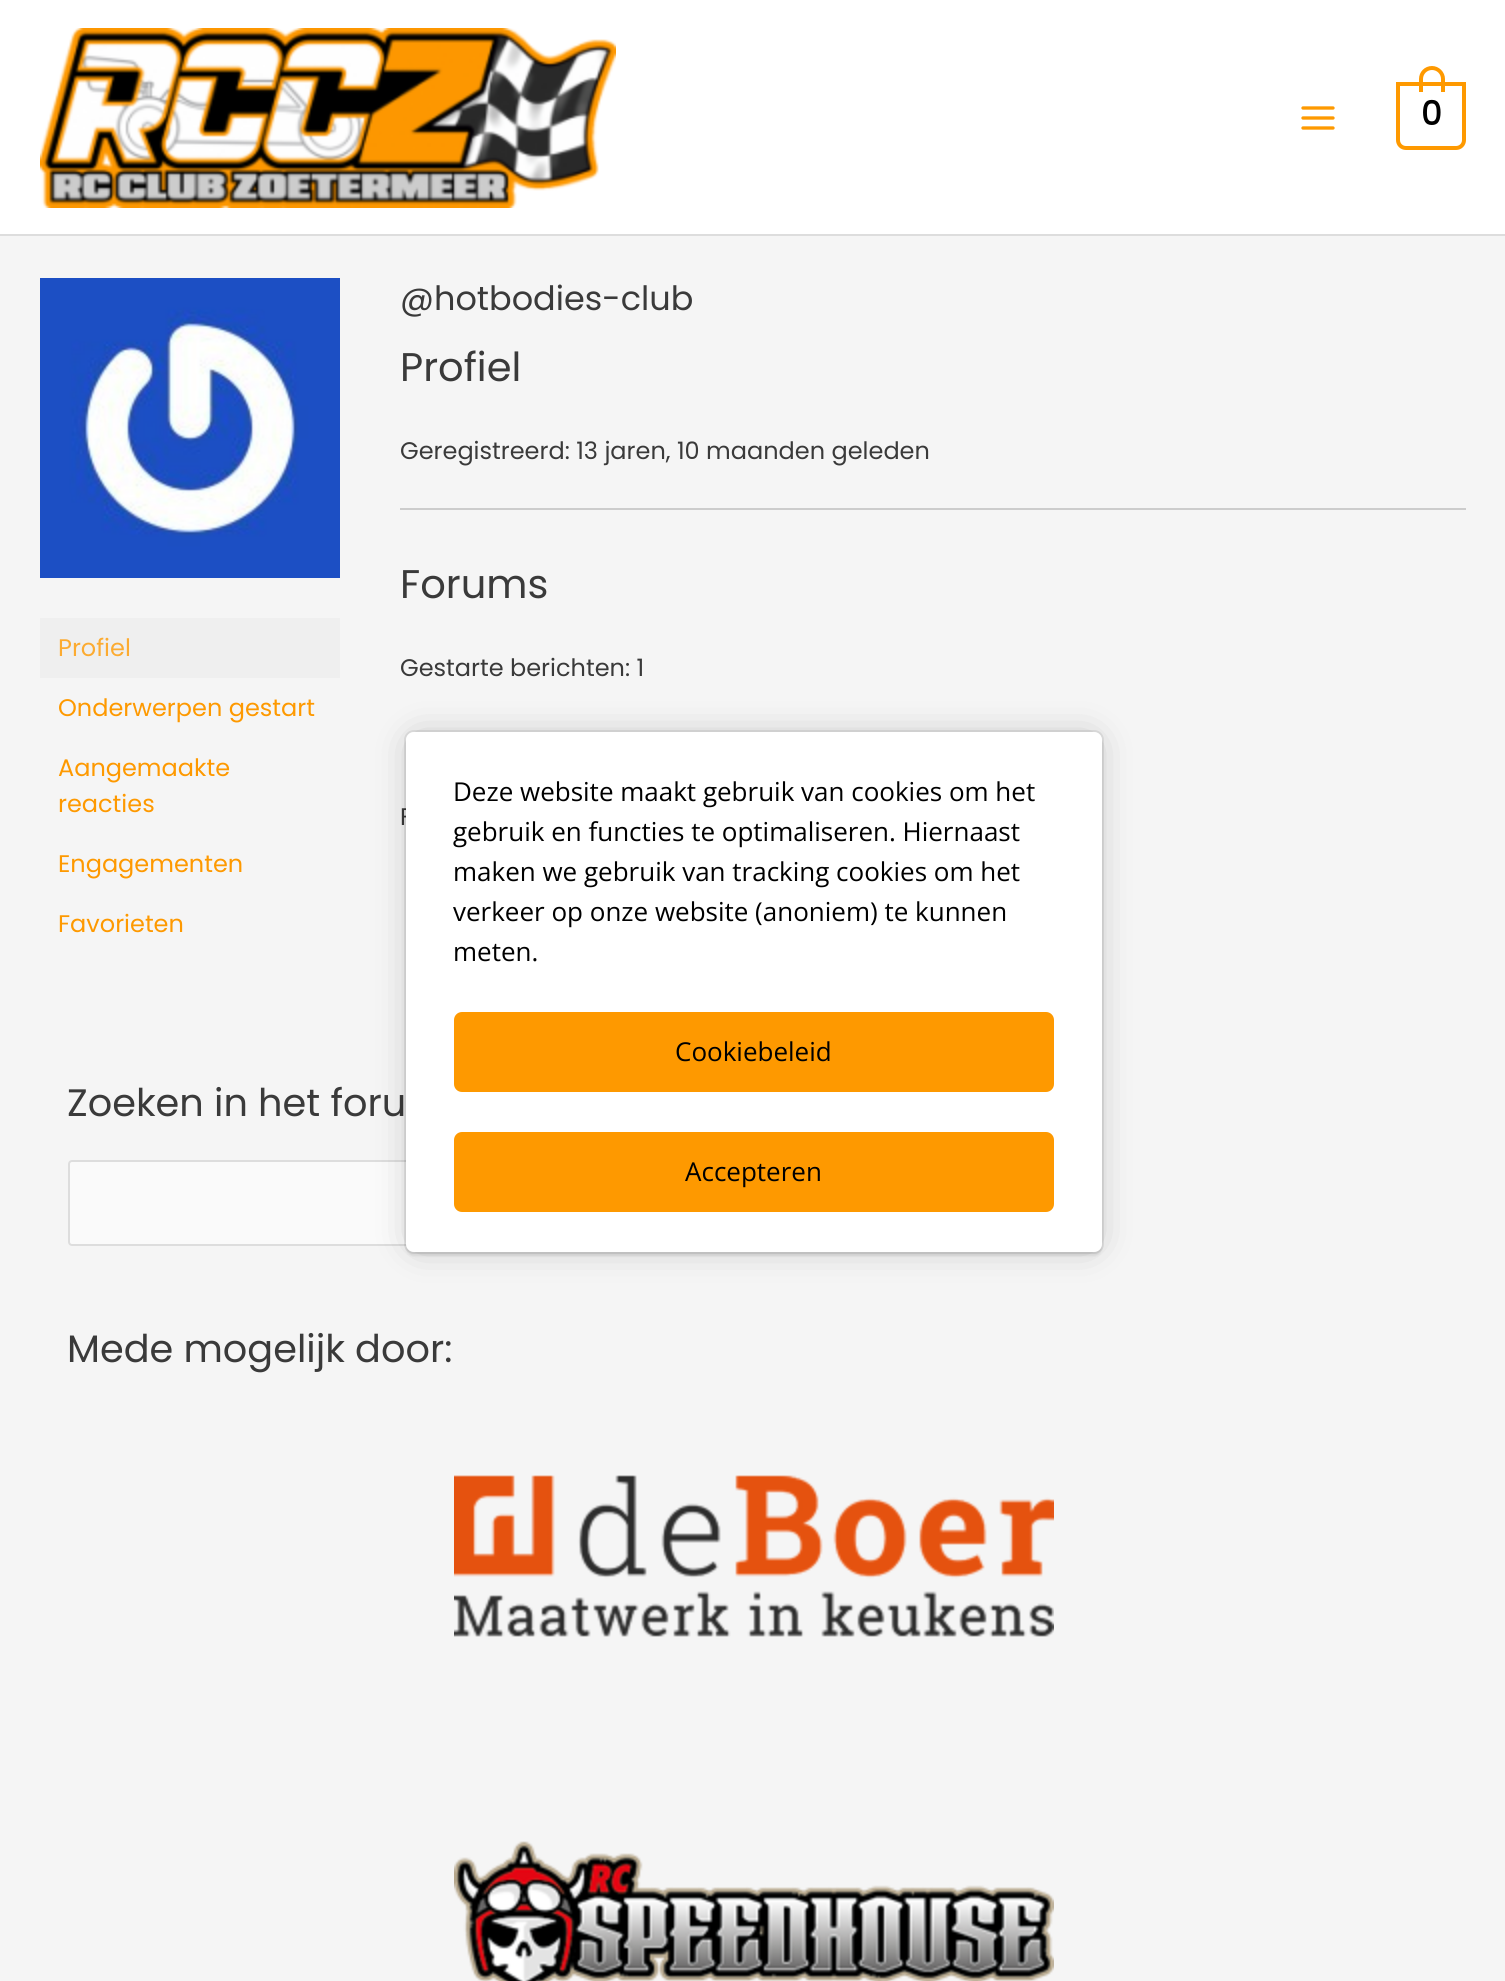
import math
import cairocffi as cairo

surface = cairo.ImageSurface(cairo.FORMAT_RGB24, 1505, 1981)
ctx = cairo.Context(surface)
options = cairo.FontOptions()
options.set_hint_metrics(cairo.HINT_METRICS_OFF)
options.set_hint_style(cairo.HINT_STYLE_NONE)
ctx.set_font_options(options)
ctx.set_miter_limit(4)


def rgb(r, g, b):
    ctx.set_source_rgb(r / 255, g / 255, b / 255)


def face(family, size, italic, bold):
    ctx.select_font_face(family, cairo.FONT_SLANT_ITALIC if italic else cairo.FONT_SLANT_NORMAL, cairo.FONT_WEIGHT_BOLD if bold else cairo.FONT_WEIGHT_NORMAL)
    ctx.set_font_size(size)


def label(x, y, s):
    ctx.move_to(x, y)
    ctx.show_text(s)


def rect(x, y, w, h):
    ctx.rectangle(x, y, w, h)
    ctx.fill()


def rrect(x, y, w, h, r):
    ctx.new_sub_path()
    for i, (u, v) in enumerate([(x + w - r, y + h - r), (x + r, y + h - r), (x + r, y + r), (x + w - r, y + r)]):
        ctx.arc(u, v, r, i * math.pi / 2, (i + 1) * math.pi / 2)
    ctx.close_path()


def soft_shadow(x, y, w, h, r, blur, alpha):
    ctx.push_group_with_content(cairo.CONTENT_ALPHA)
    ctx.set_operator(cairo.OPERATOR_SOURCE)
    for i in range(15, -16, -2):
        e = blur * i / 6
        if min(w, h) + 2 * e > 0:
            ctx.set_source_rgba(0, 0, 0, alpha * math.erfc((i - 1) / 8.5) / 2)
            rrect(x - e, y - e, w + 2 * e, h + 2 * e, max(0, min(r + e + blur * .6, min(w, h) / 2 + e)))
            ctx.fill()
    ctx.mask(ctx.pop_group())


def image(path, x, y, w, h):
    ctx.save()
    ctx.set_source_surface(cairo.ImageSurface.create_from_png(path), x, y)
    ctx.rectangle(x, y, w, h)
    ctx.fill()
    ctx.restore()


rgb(245, 245, 245)
ctx.paint()
rgb(255, 255, 255)
rect(0, 0, 1505, 234)
rgb(221, 221, 221)
rect(0, 234, 1505, 2)
image('image0.png', 40, 28, 576, 180)
image('image1.png', 1301, 106, 34, 24)
ctx.new_path()
ctx.move_to(1398, 84)
ctx.line_to(1464, 84)
ctx.line_to(1464, 140)
ctx.curve_to(1464, 144.5, 1460.5, 148, 1456, 148)
ctx.line_to(1406, 148)
ctx.curve_to(1401.5, 148, 1398, 144.5, 1398, 140)
ctx.close_path()
rgb(254, 153, 0)
ctx.set_line_width(4)
ctx.stroke()
ctx.set_fill_rule(cairo.FILL_RULE_EVEN_ODD)
ctx.new_path()
ctx.move_to(1432, 66)
ctx.curve_to(1439, 66, 1445, 72, 1445, 79)
ctx.line_to(1445, 92)
ctx.line_to(1419, 92)
ctx.line_to(1419, 79)
ctx.curve_to(1419, 72, 1424.5, 66, 1432, 66)
ctx.close_path()
ctx.move_to(1432, 70)
ctx.curve_to(1437, 70, 1441, 74, 1441, 79)
ctx.line_to(1441, 92)
ctx.line_to(1423, 92)
ctx.line_to(1423, 79)
ctx.curve_to(1423, 74, 1427, 70, 1432, 70)
ctx.close_path()
ctx.fill()
face('Poppins', 33, 0, 1)
rgb(0, 0, 0)
label(1421, 125, '0')
image('image2.png', 40, 278, 300, 300)
rgb(239, 239, 239)
rect(40, 618, 300, 60)
face('Poppins', 24, 0, 0)
rgb(252, 171, 49)
label(58, 656, 'Profiel')
rgb(254, 153, 0)
label(58, 716, 'Onderwerpen gestart')
label(58, 776, 'Aangemaakte')
label(58, 812, 'reacties')
label(58, 872, 'Engagementen')
label(58, 932, 'Favorieten')
face('Poppins', 33.5, 0, 0)
rgb(58, 58, 58)
label(400, 310, '@hotbodies-club')
face('Poppins', 40, 0, 0)
label(400, 381, 'Profiel')
face('Poppins', 24, 0, 0)
label(400, 459, 'Geregistreerd: 13 jaren, 10 maanden geleden')
rgb(204, 204, 204)
rect(400, 508, 1066, 2)
face('Poppins', 40, 0, 0)
rgb(58, 58, 58)
label(400, 598, 'Forums')
face('Poppins', 24, 0, 0)
label(400, 676, 'Gestarte berichten: 1')
label(400, 825, 'F')
face('Poppins', 38.25, 0, 0)
label(67, 1116, 'Zoeken in het foru')
rgb(250, 250, 250)
rrect(69, 1161, 582, 84, 3)
ctx.fill_preserve()
rgb(221, 221, 221)
ctx.set_line_width(2)
ctx.stroke()
rgb(58, 58, 58)
label(67, 1362, 'Mede mogelijk door:')
image('image3.png', 454, 1475, 600, 162)
image('image4.png', 454, 1841, 600, 140)
rgb(0, 0, 0)
soft_shadow(418, 744, 672, 496, 0, 20, 0.31)
soft_shadow(406, 736, 696, 520, 8, 1, 0.08)
rrect(405, 731, 698, 522, 9)
ctx.set_source_rgba(0, 0, 0, 0.08)
ctx.stroke()
rgb(255, 255, 255)
rrect(406, 732, 696, 520, 8)
ctx.fill()
face('Open Sans', 26, 0, 0)
rgb(0, 0, 0)
label(453, 801, 'Deze website maakt gebruik van cookies om het')
label(453, 841, 'gebruik en functies te optimaliseren. Hiernaast')
label(453, 881, 'maken we gebruik van tracking cookies om het')
label(453, 921, 'verkeer op onze website (anoniem) te kunnen')
label(453, 961, 'meten.')
rgb(254, 153, 0)
rrect(455, 1013, 598, 78, 7)
ctx.fill_preserve()
ctx.stroke()
rgb(0, 0, 0)
label(675, 1061, 'Cookiebeleid')
rgb(254, 153, 0)
rrect(455, 1133, 598, 78, 7)
ctx.fill_preserve()
ctx.stroke()
rgb(0, 0, 0)
label(685, 1181, 'Accepteren')
surface.write_to_png('render.png')
